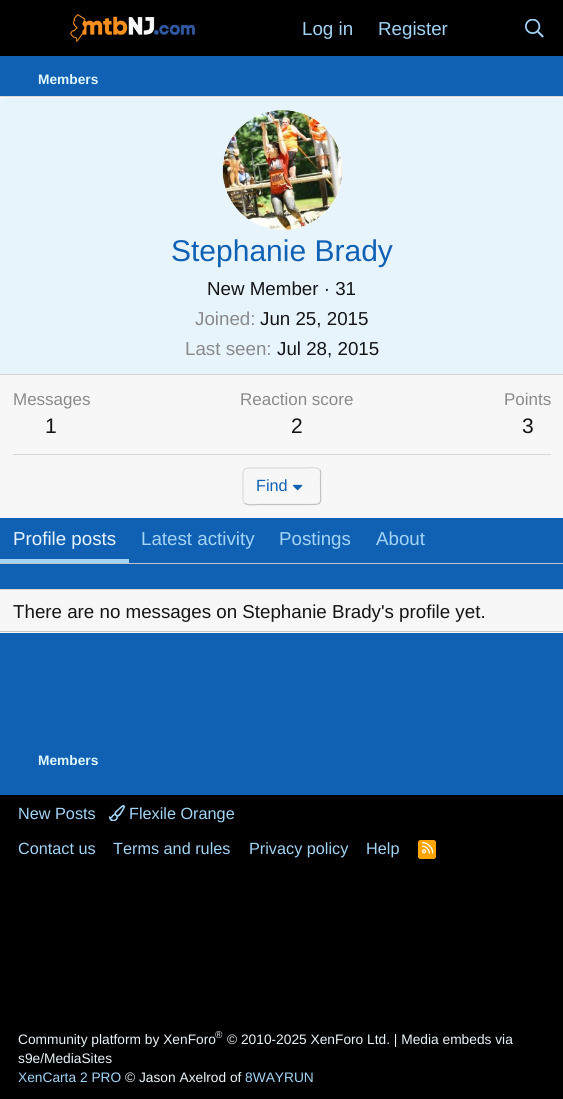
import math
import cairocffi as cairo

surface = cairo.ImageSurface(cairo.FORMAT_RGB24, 563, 1099)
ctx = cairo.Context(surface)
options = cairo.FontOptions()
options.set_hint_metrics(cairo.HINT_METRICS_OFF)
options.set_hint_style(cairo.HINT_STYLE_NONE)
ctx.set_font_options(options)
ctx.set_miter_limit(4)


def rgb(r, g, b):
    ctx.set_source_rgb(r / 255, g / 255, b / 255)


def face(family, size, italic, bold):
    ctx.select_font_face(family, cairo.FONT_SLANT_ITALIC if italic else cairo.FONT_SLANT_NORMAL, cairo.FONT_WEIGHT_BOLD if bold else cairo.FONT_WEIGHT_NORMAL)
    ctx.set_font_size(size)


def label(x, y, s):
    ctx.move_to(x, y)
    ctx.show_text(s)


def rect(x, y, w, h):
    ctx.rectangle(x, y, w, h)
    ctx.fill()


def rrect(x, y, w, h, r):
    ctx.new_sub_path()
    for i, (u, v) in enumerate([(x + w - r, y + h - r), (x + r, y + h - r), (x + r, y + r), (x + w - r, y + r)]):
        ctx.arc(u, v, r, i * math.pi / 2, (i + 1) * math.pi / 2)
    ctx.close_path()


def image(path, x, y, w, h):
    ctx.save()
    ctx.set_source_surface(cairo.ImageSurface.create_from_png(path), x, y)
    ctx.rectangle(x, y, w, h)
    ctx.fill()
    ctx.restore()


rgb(16, 97, 179)
ctx.paint()
rgb(0, 0, 0)
rect(0, 0, 563, 56)
image('image0.png', 70, 13, 125, 30)
face('Liberation Sans', 18.75, 0, 0)
rgb(163, 212, 245)
label(302, 35, 'Log in')
label(378, 35, 'Register')
image('image1.png', 525, 19, 19, 19)
face('Liberation Sans', 13.75, 0, 1)
rgb(224, 248, 253)
label(38, 84, 'Members')
rgb(247, 247, 247)
rect(0, 97, 563, 421)
rgb(216, 216, 216)
rect(0, 96, 563, 1)
rgb(196, 196, 196)
rect(0, 563, 563, 1)
rgb(232, 244, 252)
ctx.new_path()
ctx.move_to(4, 98)
ctx.line_to(560, 98)
ctx.curve_to(562, 98, 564, 100, 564, 102)
ctx.line_to(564, 375)
ctx.line_to(0, 375)
ctx.line_to(0, 102)
ctx.curve_to(0, 100, 2, 98, 4, 98)
ctx.close_path()
ctx.fill()
rgb(216, 216, 216)
rect(0, 374, 563, 1)
rgb(247, 247, 247)
ctx.arc(283, 170, 60, 0, 2 * math.pi)
ctx.fill()
image('image2.png', 222, 110, 121, 120)
face('Liberation Sans', 30, 0, 0)
rgb(16, 97, 179)
label(171, 261, 'Stephanie Brady')
face('Liberation Sans', 18.75, 0, 0)
rgb(20, 20, 20)
label(207, 295, 'New Member · 31')
rgb(138, 138, 138)
label(195, 325, 'Joined:')
rgb(20, 20, 20)
label(260, 325, 'Jun 25, 2015')
rgb(138, 138, 138)
label(185, 355, 'Last seen:')
rgb(20, 20, 20)
label(277, 355, 'Jul 28, 2015')
face('Liberation Sans', 17, 0, 0)
rgb(138, 138, 138)
label(13, 405, 'Messages')
face('Liberation Sans', 21, 0, 0)
rgb(20, 20, 20)
label(45, 433, '1')
face('Liberation Sans', 17, 0, 0)
rgb(138, 138, 138)
label(240, 405, 'Reaction score')
face('Liberation Sans', 21, 0, 0)
rgb(20, 20, 20)
label(291, 433, '2')
face('Liberation Sans', 17, 0, 0)
rgb(138, 138, 138)
label(504, 405, 'Points')
face('Liberation Sans', 21, 0, 0)
rgb(20, 20, 20)
label(522, 433, '3')
rgb(216, 216, 216)
rect(13, 454, 538, 1)
ctx.new_path()
ctx.move_to(319.5, 469.5)
ctx.curve_to(321.5, 471.5, 320.5, 474.5, 320.5, 477)
ctx.line_to(320.5, 486)
ctx.curve_to(320.5, 505.5, 324, 504.5, 305, 504.5)
ctx.line_to(259, 504.5)
ctx.curve_to(258.5, 504.5, 247.5, 506, 244.5, 503)
rgb(193, 193, 193)
ctx.set_line_width(1.2)
ctx.stroke()
ctx.new_path()
ctx.move_to(244.5, 503)
ctx.curve_to(242.5, 501, 243, 498, 243, 495.5)
ctx.line_to(243, 486)
ctx.curve_to(243, 467, 240, 468, 259, 468)
ctx.line_to(305, 468)
ctx.curve_to(305.5, 468, 316, 466.5, 319.5, 469.5)
rgb(219, 219, 219)
ctx.stroke()
face('Liberation Sans', 16.25, 0, 0)
rgb(16, 97, 179)
label(256, 491, 'Find')
image('image3.png', 293, 484, 10, 7)
rgb(163, 212, 245)
rect(0, 559, 129, 4)
face('Liberation Sans', 18.75, 0, 0)
rgb(232, 244, 252)
label(13, 545, 'Profile posts')
rgb(163, 212, 245)
label(141, 545, 'Latest activity')
label(279, 545, 'Postings')
label(376, 545, 'About')
rgb(247, 247, 247)
rect(0, 590, 563, 43)
rgb(216, 216, 216)
rect(0, 589, 563, 1)
rgb(196, 196, 196)
rect(0, 631, 563, 1)
rgb(20, 20, 20)
label(13, 618, 'There are no messages on Stephanie Brady\'s profile yet.')
face('Liberation Sans', 13.75, 0, 1)
rgb(224, 248, 253)
label(38, 765, 'Members')
rgb(0, 0, 0)
rect(0, 795, 563, 304)
face('Liberation Sans', 16.25, 0, 0)
rgb(163, 212, 245)
label(18, 819, 'New Posts')
image('image4.png', 109, 805, 16, 16)
label(129, 819, 'Flexile Orange')
label(18, 854, 'Contact us')
label(113, 854, 'Terms and rules')
label(249, 854, 'Privacy policy')
label(366, 854, 'Help')
rgb(255, 165, 0)
rrect(418, 840, 18, 19, 2.5)
ctx.fill()
image('image5.png', 422, 842, 12, 12)
face('Liberation Sans', 13.75, 0, 0)
rgb(232, 244, 252)
label(18, 1044, 'Community platform by XenForo')
face('Liberation Sans', 10, 0, 0)
label(215, 1038, '®')
face('Liberation Sans', 13.75, 0, 0)
label(227, 1044, '© 2010-2025 XenForo Ltd. | Media embeds via')
label(18, 1063, 's9e/MediaSites')
rgb(163, 212, 245)
label(18, 1082, 'XenCarta 2 PRO')
rgb(232, 244, 252)
label(125, 1082, '© Jason Axelrod of')
rgb(163, 212, 245)
label(245, 1082, '8WAYRUN')
surface.write_to_png('render.png')
